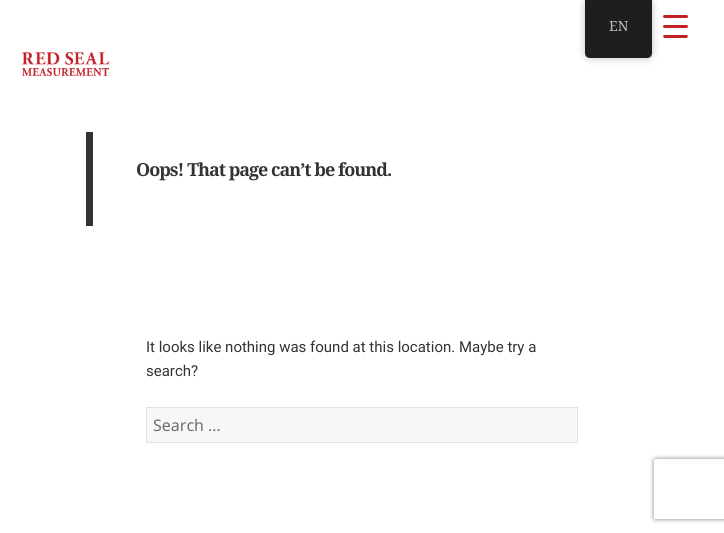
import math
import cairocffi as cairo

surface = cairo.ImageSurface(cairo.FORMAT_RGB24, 724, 533)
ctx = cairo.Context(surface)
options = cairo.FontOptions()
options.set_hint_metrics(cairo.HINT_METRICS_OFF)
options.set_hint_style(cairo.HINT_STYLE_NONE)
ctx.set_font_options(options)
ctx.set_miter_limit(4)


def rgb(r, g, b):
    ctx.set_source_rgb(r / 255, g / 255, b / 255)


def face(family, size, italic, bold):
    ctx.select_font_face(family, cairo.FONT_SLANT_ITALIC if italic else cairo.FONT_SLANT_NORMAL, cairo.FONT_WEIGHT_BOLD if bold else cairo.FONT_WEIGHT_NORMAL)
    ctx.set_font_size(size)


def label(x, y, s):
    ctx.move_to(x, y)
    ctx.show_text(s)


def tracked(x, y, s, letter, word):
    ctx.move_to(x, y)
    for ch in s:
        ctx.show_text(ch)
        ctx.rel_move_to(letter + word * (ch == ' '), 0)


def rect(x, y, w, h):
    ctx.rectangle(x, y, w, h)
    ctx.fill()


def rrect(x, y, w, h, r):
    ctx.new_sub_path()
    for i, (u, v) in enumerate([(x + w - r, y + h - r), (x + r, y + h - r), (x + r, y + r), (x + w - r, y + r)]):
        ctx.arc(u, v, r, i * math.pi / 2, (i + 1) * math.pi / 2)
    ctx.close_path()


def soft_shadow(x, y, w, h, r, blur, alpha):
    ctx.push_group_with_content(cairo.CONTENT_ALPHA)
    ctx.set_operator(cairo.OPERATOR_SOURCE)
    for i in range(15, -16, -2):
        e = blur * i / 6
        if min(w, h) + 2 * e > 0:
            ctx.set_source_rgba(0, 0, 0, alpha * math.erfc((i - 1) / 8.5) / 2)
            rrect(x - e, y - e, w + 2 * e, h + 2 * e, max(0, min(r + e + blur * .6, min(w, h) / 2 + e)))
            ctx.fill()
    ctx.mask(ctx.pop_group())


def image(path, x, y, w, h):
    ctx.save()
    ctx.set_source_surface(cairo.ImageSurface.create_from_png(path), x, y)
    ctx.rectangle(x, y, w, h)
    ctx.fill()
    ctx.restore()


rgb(255, 255, 255)
ctx.paint()
rgb(196, 33, 38)
rrect(663, 25, 25, 3, 1.5)
ctx.fill()
rrect(663, 15, 25, 3, 1.5)
ctx.fill()
ctx.save()
rrect(663, 10, 25, 30, 5)
ctx.clip()
rrect(663, 35, 25, 3, 1.5)
ctx.fill()
ctx.restore()
rgb(0, 0, 0)
soft_shadow(585, 0, 67, 58, 5, 4, 0.25)
rgb(30, 30, 30)
ctx.new_path()
ctx.move_to(585, 0)
ctx.line_to(652, 0)
ctx.line_to(652, 53)
ctx.curve_to(652, 56, 650, 58, 647, 58)
ctx.line_to(590, 58)
ctx.curve_to(587, 58, 585, 56, 585, 53)
ctx.close_path()
ctx.fill()
face('Noto Serif', 14, 0, 0)
rgb(189, 189, 189)
label(609, 31, 'EN')
image('image0.png', 22, 52, 87, 24)
rgb(51, 51, 51)
rect(86, 132, 7, 94)
face('Noto Serif', 18, 0, 1)
tracked(136, 176, 'Oops! That page can’t be found.', -1, 0)
face('Roboto', 15, 0, 0)
label(146, 352, 'It looks like nothing was found at this location. Maybe try a')
label(146, 376, 'search?')
rgb(247, 247, 247)
ctx.rectangle(146.5, 407.5, 431, 35)
ctx.fill_preserve()
rgb(227, 227, 227)
ctx.set_line_width(1)
ctx.stroke()
face('Noto Sans', 16, 0, 0)
rgb(110, 110, 110)
label(153, 431, 'Search …')
ctx.save()
ctx.set_fill_rule(cairo.FILL_RULE_EVEN_ODD)
ctx.new_path()
ctx.move_to(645, 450)
ctx.line_to(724, 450)
ctx.line_to(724, 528)
ctx.line_to(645, 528)
ctx.close_path()
ctx.move_to(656, 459)
ctx.line_to(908, 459)
ctx.curve_to(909, 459, 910, 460, 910, 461)
ctx.line_to(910, 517)
ctx.curve_to(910, 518, 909, 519, 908, 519)
ctx.line_to(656, 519)
ctx.curve_to(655, 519, 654, 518, 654, 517)
ctx.line_to(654, 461)
ctx.curve_to(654, 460, 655, 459, 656, 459)
ctx.close_path()
ctx.clip()
rgb(128, 128, 128)
soft_shadow(654, 459, 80, 60, 2, 2.5, 1)
ctx.restore()
surface.write_to_png('render.png')
